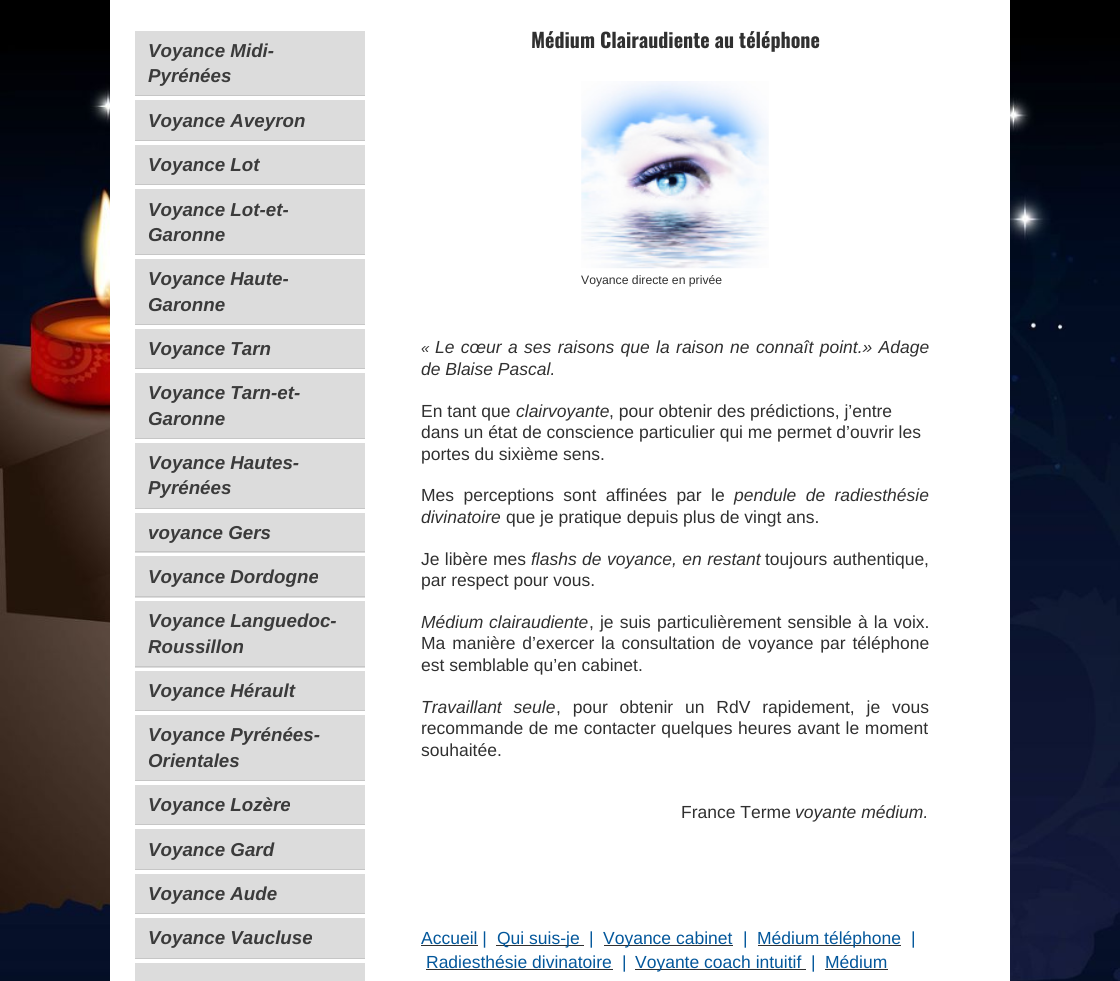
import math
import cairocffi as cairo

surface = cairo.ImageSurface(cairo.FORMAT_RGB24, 1120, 981)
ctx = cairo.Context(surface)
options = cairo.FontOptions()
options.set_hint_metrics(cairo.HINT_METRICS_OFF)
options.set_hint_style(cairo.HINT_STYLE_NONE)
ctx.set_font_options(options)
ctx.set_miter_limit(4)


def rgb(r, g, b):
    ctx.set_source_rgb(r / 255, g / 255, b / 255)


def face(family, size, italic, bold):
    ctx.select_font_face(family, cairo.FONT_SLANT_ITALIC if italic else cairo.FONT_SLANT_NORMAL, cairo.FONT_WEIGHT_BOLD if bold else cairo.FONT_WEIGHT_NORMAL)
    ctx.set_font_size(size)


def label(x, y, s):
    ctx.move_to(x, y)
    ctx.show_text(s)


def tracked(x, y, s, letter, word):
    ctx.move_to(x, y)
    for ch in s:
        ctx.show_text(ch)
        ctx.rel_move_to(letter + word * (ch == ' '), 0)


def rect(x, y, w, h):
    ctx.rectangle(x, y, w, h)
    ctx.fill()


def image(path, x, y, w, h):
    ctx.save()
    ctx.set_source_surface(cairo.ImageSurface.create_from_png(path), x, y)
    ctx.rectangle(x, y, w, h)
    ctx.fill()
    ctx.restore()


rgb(255, 255, 255)
ctx.paint()
image('image0.png', 0, 0, 1120, 981)
rgb(255, 255, 255)
rect(110, 0, 900, 981)
rgb(220, 220, 220)
rect(135, 31, 230, 64)
rgb(198, 198, 198)
rect(135, 95, 230, 1)
face('Liberation Sans', 18.75, 1, 1)
rgb(59, 59, 59)
label(148, 57, 'Voyance Midi-')
label(148, 82, 'Pyrénées')
rgb(220, 220, 220)
rect(135, 100, 230, 40)
rgb(198, 198, 198)
rect(135, 140, 230, 1)
rgb(59, 59, 59)
label(148, 127, 'Voyance Aveyron')
rgb(220, 220, 220)
rect(135, 145, 230, 39)
rgb(198, 198, 198)
rect(135, 184, 230, 1)
rgb(59, 59, 59)
label(148, 171, 'Voyance Lot')
rgb(220, 220, 220)
rect(135, 189, 230, 65)
rgb(198, 198, 198)
rect(135, 254, 230, 1)
rgb(59, 59, 59)
label(148, 216, 'Voyance Lot-et-')
label(148, 241, 'Garonne')
rgb(220, 220, 220)
rect(135, 259, 230, 65)
rgb(198, 198, 198)
rect(135, 324, 230, 1)
rgb(59, 59, 59)
label(148, 285, 'Voyance Haute-')
label(148, 311, 'Garonne')
rgb(220, 220, 220)
rect(135, 329, 230, 39)
rgb(198, 198, 198)
rect(135, 368, 230, 1)
rgb(59, 59, 59)
label(148, 355, 'Voyance Tarn')
rgb(220, 220, 220)
rect(135, 373, 230, 65)
rgb(198, 198, 198)
rect(135, 438, 230, 1)
rgb(59, 59, 59)
label(148, 399, 'Voyance Tarn-et-')
label(148, 425, 'Garonne')
rgb(220, 220, 220)
rect(135, 443, 230, 65)
rgb(198, 198, 198)
rect(135, 508, 230, 1)
rgb(59, 59, 59)
label(148, 469, 'Voyance Hautes-')
label(148, 494, 'Pyrénées')
rgb(220, 220, 220)
rect(135, 513, 230, 40)
rgb(198, 198, 198)
rect(135, 551, 230, 1)
rgb(59, 59, 59)
label(148, 539, 'voyance Gers')
rgb(220, 220, 220)
rect(135, 556, 230, 42)
rgb(198, 198, 198)
rect(135, 596, 230, 1)
rgb(59, 59, 59)
label(148, 583, 'Voyance Dordogne')
rgb(220, 220, 220)
rect(135, 601, 230, 67)
rgb(198, 198, 198)
rect(135, 666, 230, 1)
rgb(59, 59, 59)
label(148, 627, 'Voyance Languedoc-')
label(148, 653, 'Roussillon')
rgb(220, 220, 220)
rect(135, 671, 230, 39)
rgb(198, 198, 198)
rect(135, 710, 230, 1)
rgb(59, 59, 59)
label(148, 697, 'Voyance Hérault')
rgb(220, 220, 220)
rect(135, 715, 230, 65)
rgb(198, 198, 198)
rect(135, 780, 230, 1)
rgb(59, 59, 59)
label(148, 741, 'Voyance Pyrénées-')
label(148, 767, 'Orientales')
rgb(220, 220, 220)
rect(135, 785, 230, 39)
rgb(198, 198, 198)
rect(135, 824, 230, 1)
rgb(59, 59, 59)
label(148, 811, 'Voyance Lozère')
rgb(220, 220, 220)
rect(135, 829, 230, 40)
rgb(198, 198, 198)
rect(135, 869, 230, 1)
rgb(59, 59, 59)
label(148, 856, 'Voyance Gard')
rgb(220, 220, 220)
rect(135, 874, 230, 39)
rgb(198, 198, 198)
rect(135, 913, 230, 1)
rgb(59, 59, 59)
label(148, 900, 'Voyance Aude')
rgb(220, 220, 220)
rect(135, 918, 230, 40)
rgb(198, 198, 198)
rect(135, 958, 230, 1)
rgb(59, 59, 59)
label(148, 944, 'Voyance Vaucluse')
rgb(220, 220, 220)
rect(135, 963, 230, 18)
face('Oswald', 20, 0, 1)
rgb(48, 48, 48)
label(531, 48, 'Médium Clairaudiente au téléphone')
image('image1.png', 581, 81, 188, 188)
face('Liberation Sans', 12.2, 0, 0)
label(581, 284, 'Voyance directe en privée')
face('Liberation Sans', 15, 1, 0)
label(421, 353, '«')
face('Liberation Sans', 17.5, 1, 0)
tracked(435, 353, 'Le cœur a ses raisons que la raison ne connaît point.» Adage', 0, 1.5)
label(421, 375, 'de Blaise Pascal.')
face('Liberation Sans', 17.5, 0, 0)
label(421, 417, 'En tant que')
face('Liberation Sans', 17.5, 1, 0)
label(516, 417, 'clairvoyante')
face('Liberation Sans', 17.5, 0, 0)
label(609, 417, ', pour obtenir des prédictions, j’entre')
label(421, 438, 'dans un état de conscience particulier qui me permet d’ouvrir les')
label(421, 460, 'portes du sixième sens.')
tracked(421, 501, 'Mes perceptions sont affinées par le', 0, 4.5)
face('Liberation Sans', 17.5, 1, 0)
tracked(734, 501, 'pendule de radiesthésie', 0, 4.5)
label(421, 523, 'divinatoire')
face('Liberation Sans', 17.5, 0, 0)
label(506, 523, 'que je pratique depuis plus de vingt ans.')
tracked(421, 565, 'Je libère mes', 0, 0.5)
face('Liberation Sans', 17.5, 1, 0)
tracked(531, 565, 'flashs de voyance, en restant', 0, 0.5)
face('Liberation Sans', 17.5, 0, 0)
tracked(765, 565, 'toujours authentique,', 0, 0.5)
label(421, 586, 'par respect pour vous.')
face('Liberation Sans', 17.5, 1, 0)
tracked(421, 628, 'Médium clairaudiente', 0, 1)
face('Liberation Sans', 17.5, 0, 0)
tracked(589, 628, ', je suis particulièrement sensible à la voix.', 0, 1.25)
tracked(421, 649, 'Ma manière d’exercer la consultation de voyance par téléphone', 0, 2)
label(421, 671, 'est semblable qu’en cabinet.')
face('Liberation Sans', 17.5, 1, 0)
tracked(421, 713, 'Travaillant seule', 0, 7)
face('Liberation Sans', 17.5, 0, 0)
tracked(556, 713, ', pour obtenir un RdV rapidement, je vous', 0, 7)
tracked(421, 734, 'recommande de me contacter quelques heures avant le moment', 0, 0.75)
label(421, 756, 'souhaitée.')
label(681, 818, 'France Terme')
face('Liberation Sans', 17.5, 1, 0)
label(795, 818, 'voyante médium.')
rect(421, 945, 57, 1)
face('Liberation Sans', 17.5, 0, 0)
rgb(3, 87, 155)
label(421, 944, 'Accueil |')
rgb(48, 48, 48)
rect(496, 945, 88, 1)
rgb(3, 87, 155)
label(497, 944, 'Qui suis-je')
label(589, 944, '|')
rgb(48, 48, 48)
rect(604, 945, 129, 1)
rgb(3, 87, 155)
label(603, 944, 'Voyance cabinet')
label(743, 944, '|')
rgb(48, 48, 48)
rect(758, 945, 143, 1)
rgb(3, 87, 155)
label(757, 944, 'Médium téléphone')
label(911, 944, '|')
label(426, 968, 'Radiesthésie divinatoire')
rgb(48, 48, 48)
rect(426, 969, 187, 1)
rgb(3, 87, 155)
label(622, 968, '|')
rgb(48, 48, 48)
rect(635, 969, 171, 1)
rgb(3, 87, 155)
label(635, 968, 'Voyante coach intuitif')
label(811, 968, '|')
label(825, 968, 'Médium')
rgb(48, 48, 48)
rect(825, 969, 63, 1)
surface.write_to_png('render.png')
